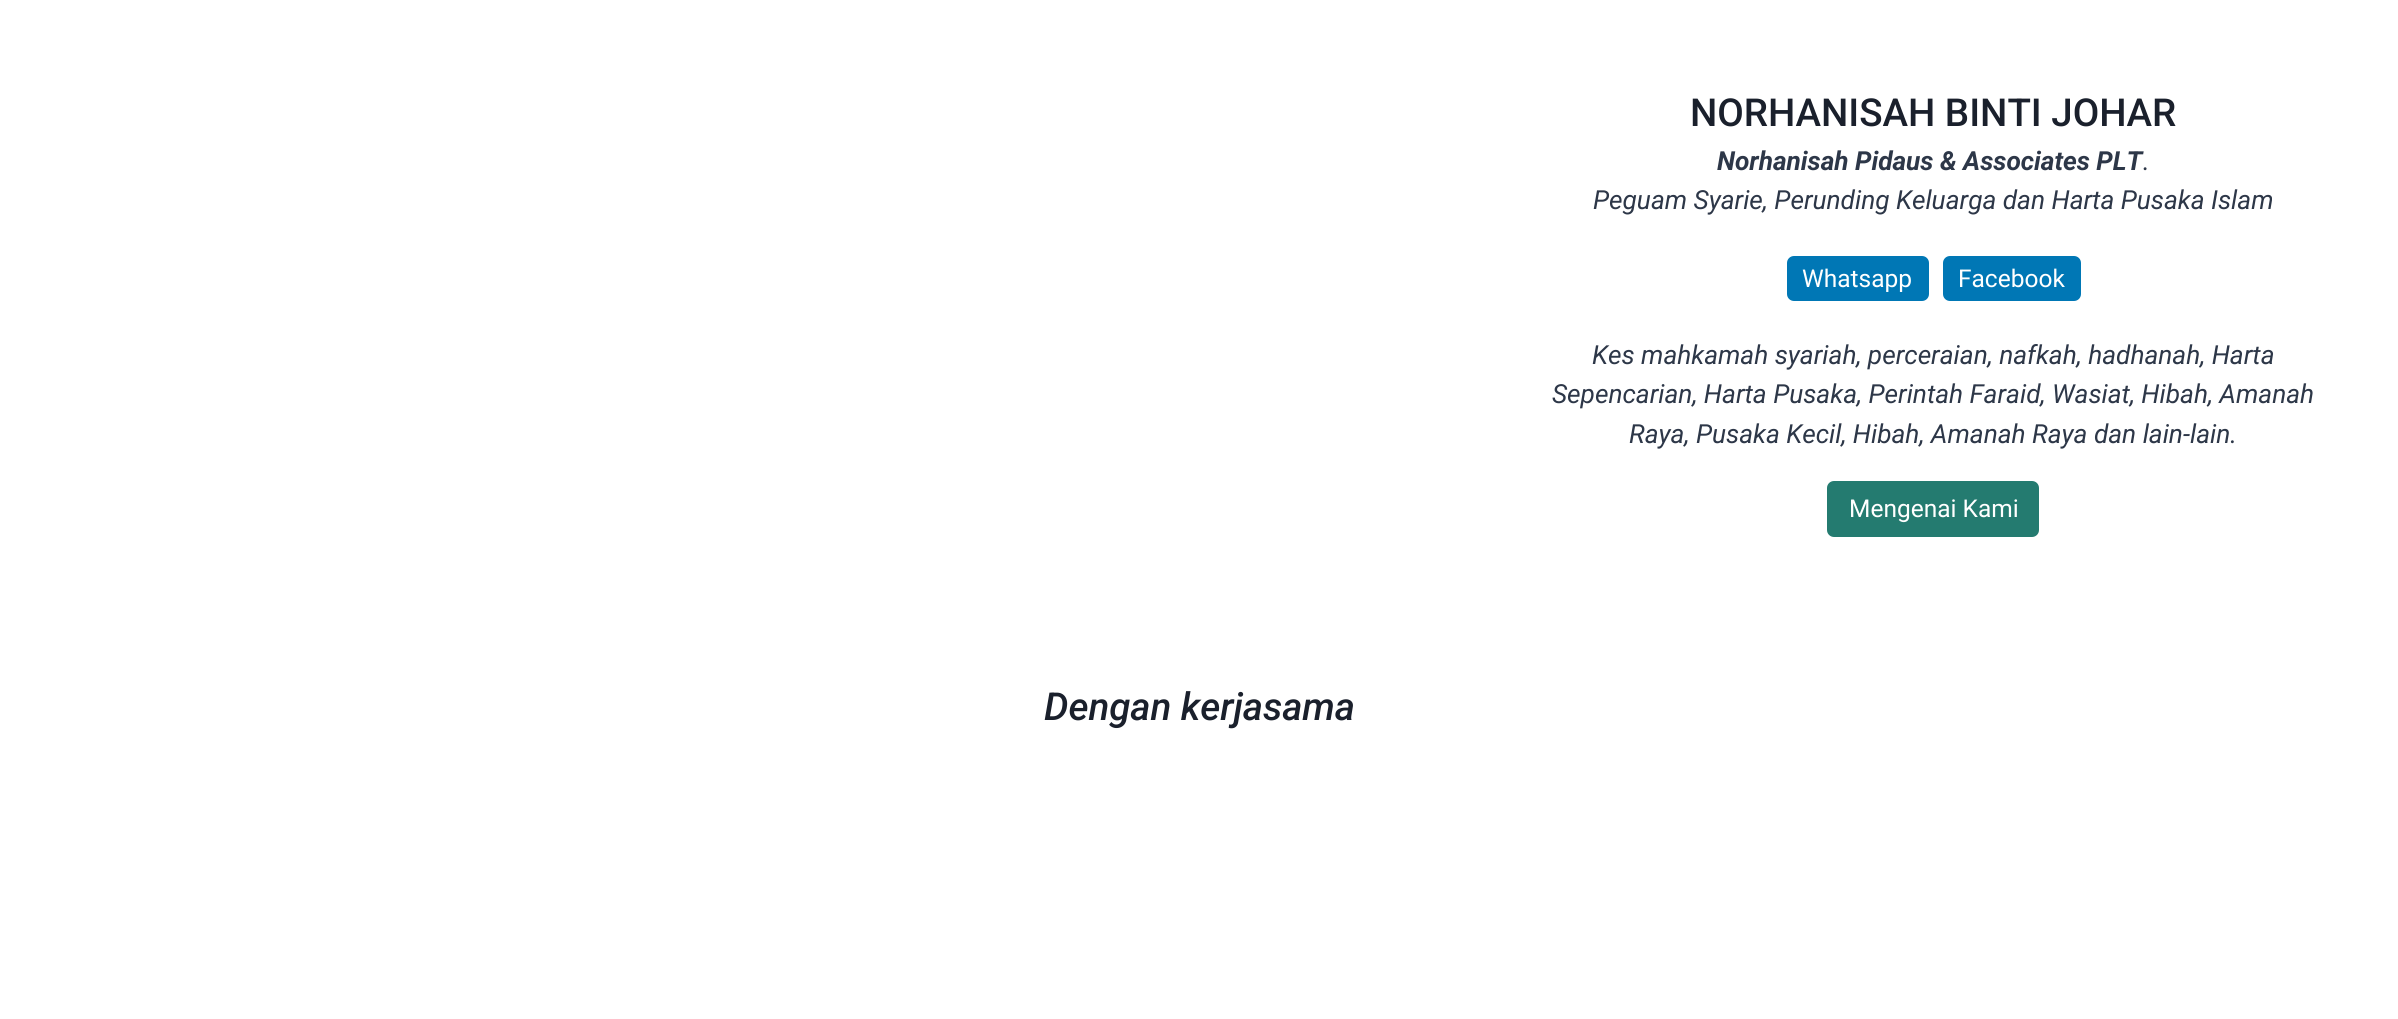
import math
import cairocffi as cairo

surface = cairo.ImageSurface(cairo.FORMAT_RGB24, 2398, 1019)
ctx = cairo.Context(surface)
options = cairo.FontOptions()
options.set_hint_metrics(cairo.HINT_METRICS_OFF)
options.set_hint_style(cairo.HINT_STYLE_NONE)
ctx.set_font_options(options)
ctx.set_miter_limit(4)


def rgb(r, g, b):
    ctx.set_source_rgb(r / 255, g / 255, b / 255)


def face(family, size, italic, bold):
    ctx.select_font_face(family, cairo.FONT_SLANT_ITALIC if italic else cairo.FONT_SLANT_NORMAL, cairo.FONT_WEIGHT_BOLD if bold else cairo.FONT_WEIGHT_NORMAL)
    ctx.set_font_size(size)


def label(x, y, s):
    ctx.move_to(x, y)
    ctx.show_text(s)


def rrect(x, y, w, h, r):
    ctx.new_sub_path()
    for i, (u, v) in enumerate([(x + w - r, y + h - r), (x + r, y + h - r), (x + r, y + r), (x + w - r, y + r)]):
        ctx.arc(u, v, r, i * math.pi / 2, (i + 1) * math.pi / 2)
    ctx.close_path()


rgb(255, 255, 255)
ctx.paint()
face('Roboto Medium', 38.5, 0, 0)
rgb(26, 32, 44)
label(1690, 126, 'NORHANISAH BINTI JOHAR')
face('Roboto', 26.25, 1, 1)
rgb(45, 55, 72)
label(1717, 170, 'Norhanisah Pidaus & Associates PLT')
face('Roboto', 26.25, 1, 0)
label(2143, 170, '.')
label(1593, 209, 'Peguam Syarie, Perunding Keluarga dan Harta Pusaka Islam')
rgb(0, 119, 181)
rrect(1787, 256, 142, 45, 7)
ctx.fill()
face('Roboto', 24.5, 0, 0)
rgb(255, 255, 255)
label(1802, 287, 'Whatsapp')
rgb(0, 119, 181)
rrect(1943, 256, 138, 45, 7)
ctx.fill()
rgb(255, 255, 255)
label(1958, 287, 'Facebook')
face('Roboto', 26.25, 1, 0)
rgb(45, 55, 72)
label(1592, 364, 'Kes mahkamah syariah, perceraian, nafkah, hadhanah, Harta')
label(1552, 403, 'Sepencarian, Harta Pusaka, Perintah Faraid, Wasiat, Hibah, Amanah')
label(1629, 443, 'Raya, Pusaka Kecil, Hibah, Amanah Raya dan lain-lain.')
rgb(36, 123, 112)
rrect(1827, 481, 212, 56, 7)
ctx.fill()
face('Roboto', 24.5, 0, 0)
rgb(255, 255, 255)
label(1849, 517, 'Mengenai Kami')
face('Roboto Medium', 38.5, 1, 0)
rgb(26, 32, 44)
label(1044, 720, 'Dengan kerjasama')
surface.write_to_png('render.png')
